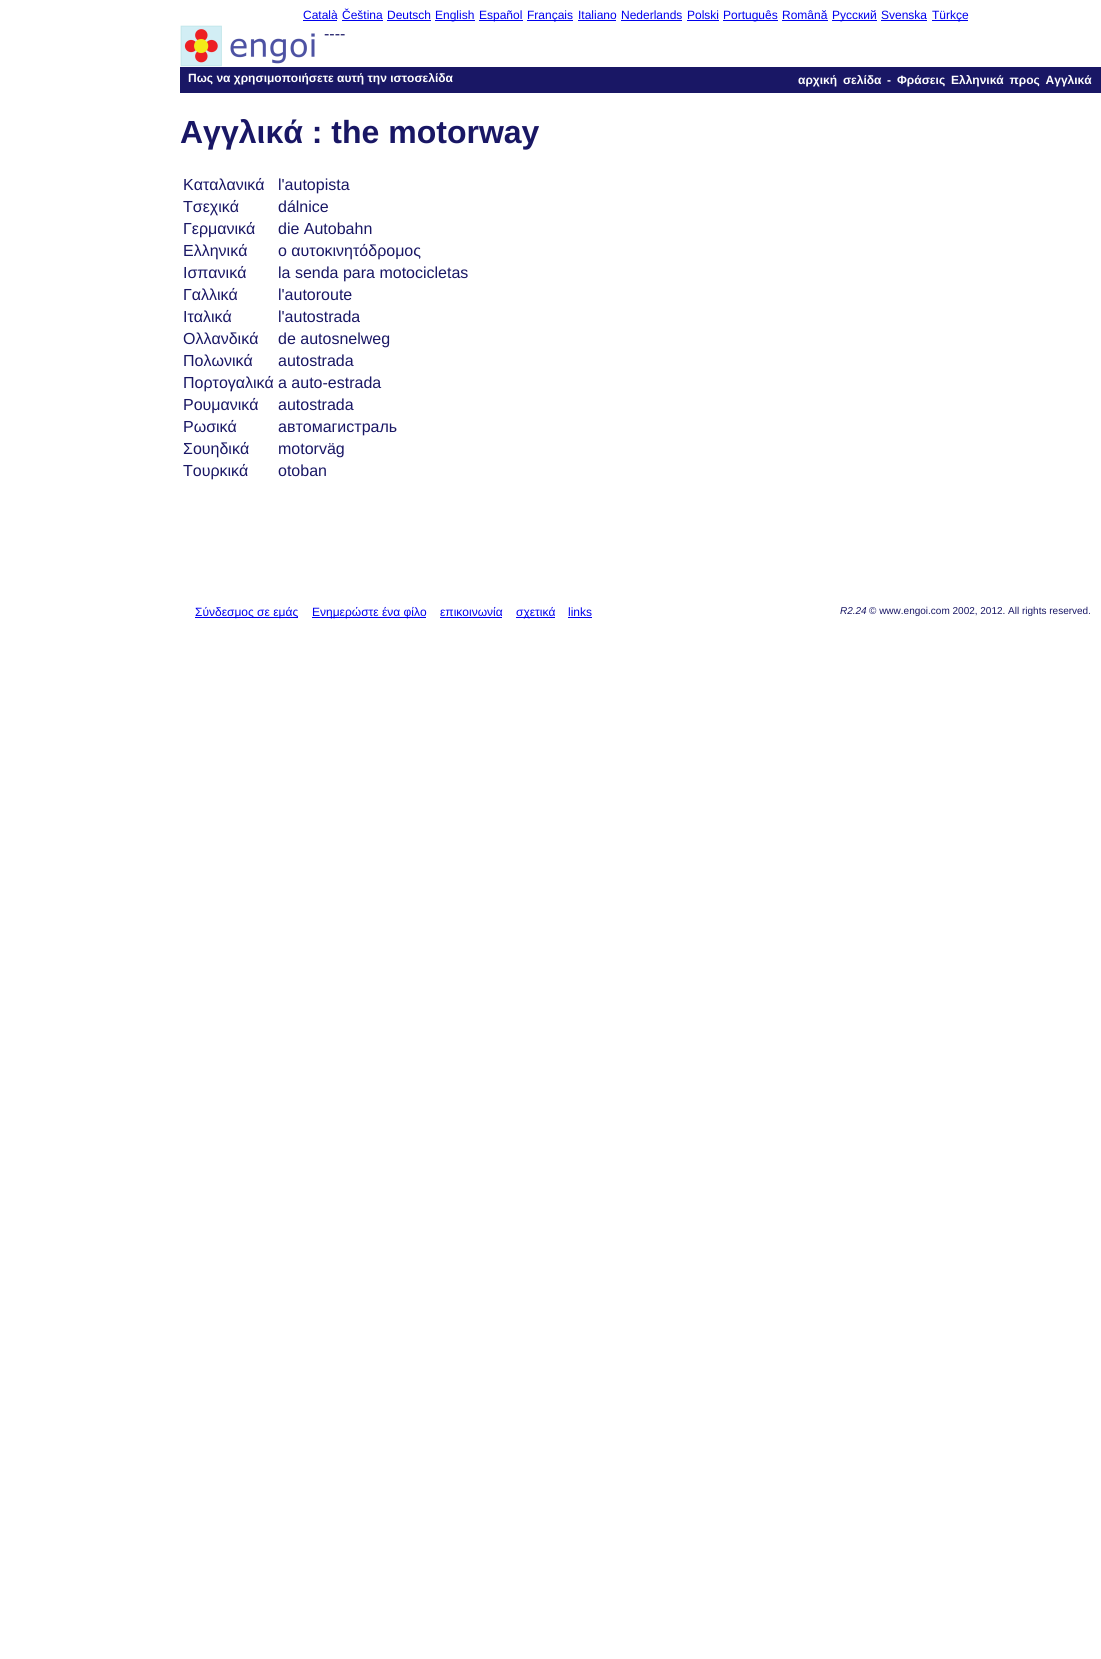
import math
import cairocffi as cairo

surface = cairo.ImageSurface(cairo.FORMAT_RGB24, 1101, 1659)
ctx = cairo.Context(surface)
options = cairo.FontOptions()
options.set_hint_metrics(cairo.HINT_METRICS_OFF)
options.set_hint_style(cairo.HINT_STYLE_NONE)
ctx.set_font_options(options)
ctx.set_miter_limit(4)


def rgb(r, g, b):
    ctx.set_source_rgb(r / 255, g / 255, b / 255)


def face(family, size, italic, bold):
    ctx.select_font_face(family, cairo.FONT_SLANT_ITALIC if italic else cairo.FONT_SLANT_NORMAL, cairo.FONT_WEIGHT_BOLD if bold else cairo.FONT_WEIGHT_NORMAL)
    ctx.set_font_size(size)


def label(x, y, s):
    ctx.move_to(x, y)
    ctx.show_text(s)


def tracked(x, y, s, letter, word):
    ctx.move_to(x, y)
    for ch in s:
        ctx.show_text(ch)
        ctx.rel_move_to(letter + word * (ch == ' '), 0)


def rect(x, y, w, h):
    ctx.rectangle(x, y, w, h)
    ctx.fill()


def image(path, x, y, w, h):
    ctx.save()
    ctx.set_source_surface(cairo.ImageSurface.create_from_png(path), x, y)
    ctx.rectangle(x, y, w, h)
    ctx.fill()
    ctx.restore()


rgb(255, 255, 255)
ctx.paint()
face('Liberation Sans', 12, 0, 0)
rgb(0, 0, 238)
label(303, 19, 'Català')
rect(303, 20, 34, 1)
label(342, 19, 'Čeština')
rect(342, 20, 41, 1)
label(387, 19, 'Deutsch')
rect(387, 20, 44, 1)
rect(435, 20, 40, 1)
label(435, 19, 'English')
rect(479, 20, 44, 1)
label(479, 19, 'Español')
rect(527, 20, 46, 1)
label(527, 19, 'Français')
label(578, 19, 'Italiano')
rect(578, 20, 38, 1)
label(621, 19, 'Nederlands')
rect(621, 20, 61, 1)
label(687, 19, 'Polski')
rect(687, 20, 32, 1)
rect(723, 20, 55, 1)
label(723, 19, 'Português')
label(782, 19, 'Română')
rect(782, 20, 46, 1)
rect(832, 20, 45, 1)
label(832, 19, 'Русский')
label(881, 19, 'Svenska')
rect(881, 20, 46, 1)
rect(932, 20, 36, 1)
label(932, 19, 'Türkçe')
image('image0.png', 180, 25, 135, 42)
face('Liberation Sans', 16, 0, 0)
rgb(25, 23, 101)
label(324, 39, '----')
rect(180, 67, 921, 26)
face('Liberation Sans', 12, 0, 1)
rgb(255, 255, 255)
label(188, 82, 'Πως να χρησιμοποιήσετε αυτή την ιστοσελίδα')
tracked(798, 84, 'αρχική σελίδα', 0, 2.5)
label(887, 84, '-')
tracked(897, 84, 'Φράσεις Ελληνικά προς Αγγλικά', 0, 2.5)
face('Liberation Sans', 32, 0, 1)
rgb(25, 23, 101)
label(180, 143, 'Αγγλικά : the motorway')
face('Liberation Sans', 16, 0, 0)
label(183, 190, 'Καταλανικά')
label(278, 190, 'l\'autopista')
label(183, 212, 'Τσεχικά')
label(278, 212, 'dálnice')
label(183, 234, 'Γερμανικά')
label(278, 234, 'die Autobahn')
label(183, 256, 'Ελληνικά')
label(278, 256, 'ο αυτοκινητόδρομος')
label(183, 278, 'Ισπανικά')
label(278, 278, 'la senda para motocicletas')
label(183, 300, 'Γαλλικά')
label(278, 300, 'l\'autoroute')
label(183, 322, 'Ιταλικά')
label(278, 322, 'l\'autostrada')
label(183, 344, 'Ολλανδικά')
label(278, 344, 'de autosnelweg')
label(183, 366, 'Πολωνικά')
label(278, 366, 'autostrada')
label(183, 388, 'Πορτογαλικά')
label(278, 388, 'a auto-estrada')
label(183, 410, 'Ρουμανικά')
label(278, 410, 'autostrada')
label(183, 432, 'Ρωσικά')
label(278, 432, 'автомагистраль')
label(183, 454, 'Σουηδικά')
label(278, 454, 'motorväg')
label(183, 476, 'Τουρκικά')
label(278, 476, 'otoban')
rgb(0, 0, 238)
rect(195, 617, 103, 1)
face('Liberation Sans', 12, 0, 0)
label(195, 616, 'Σύνδεσμος σε εμάς')
rect(312, 617, 114, 1)
label(312, 616, 'Ενημερώστε ένα φίλο')
label(440, 616, 'επικοινωνία')
rect(440, 617, 62, 1)
rect(516, 617, 39, 1)
label(516, 616, 'σχετικά')
label(568, 616, 'links')
rect(568, 617, 24, 1)
face('Liberation Sans', 10, 1, 0)
rgb(25, 23, 101)
label(840, 614, 'R2.24')
face('Liberation Sans', 10, 0, 0)
label(869, 614, '© www.engoi.com 2002, 2012. All rights reserved.')
surface.write_to_png('render.png')
